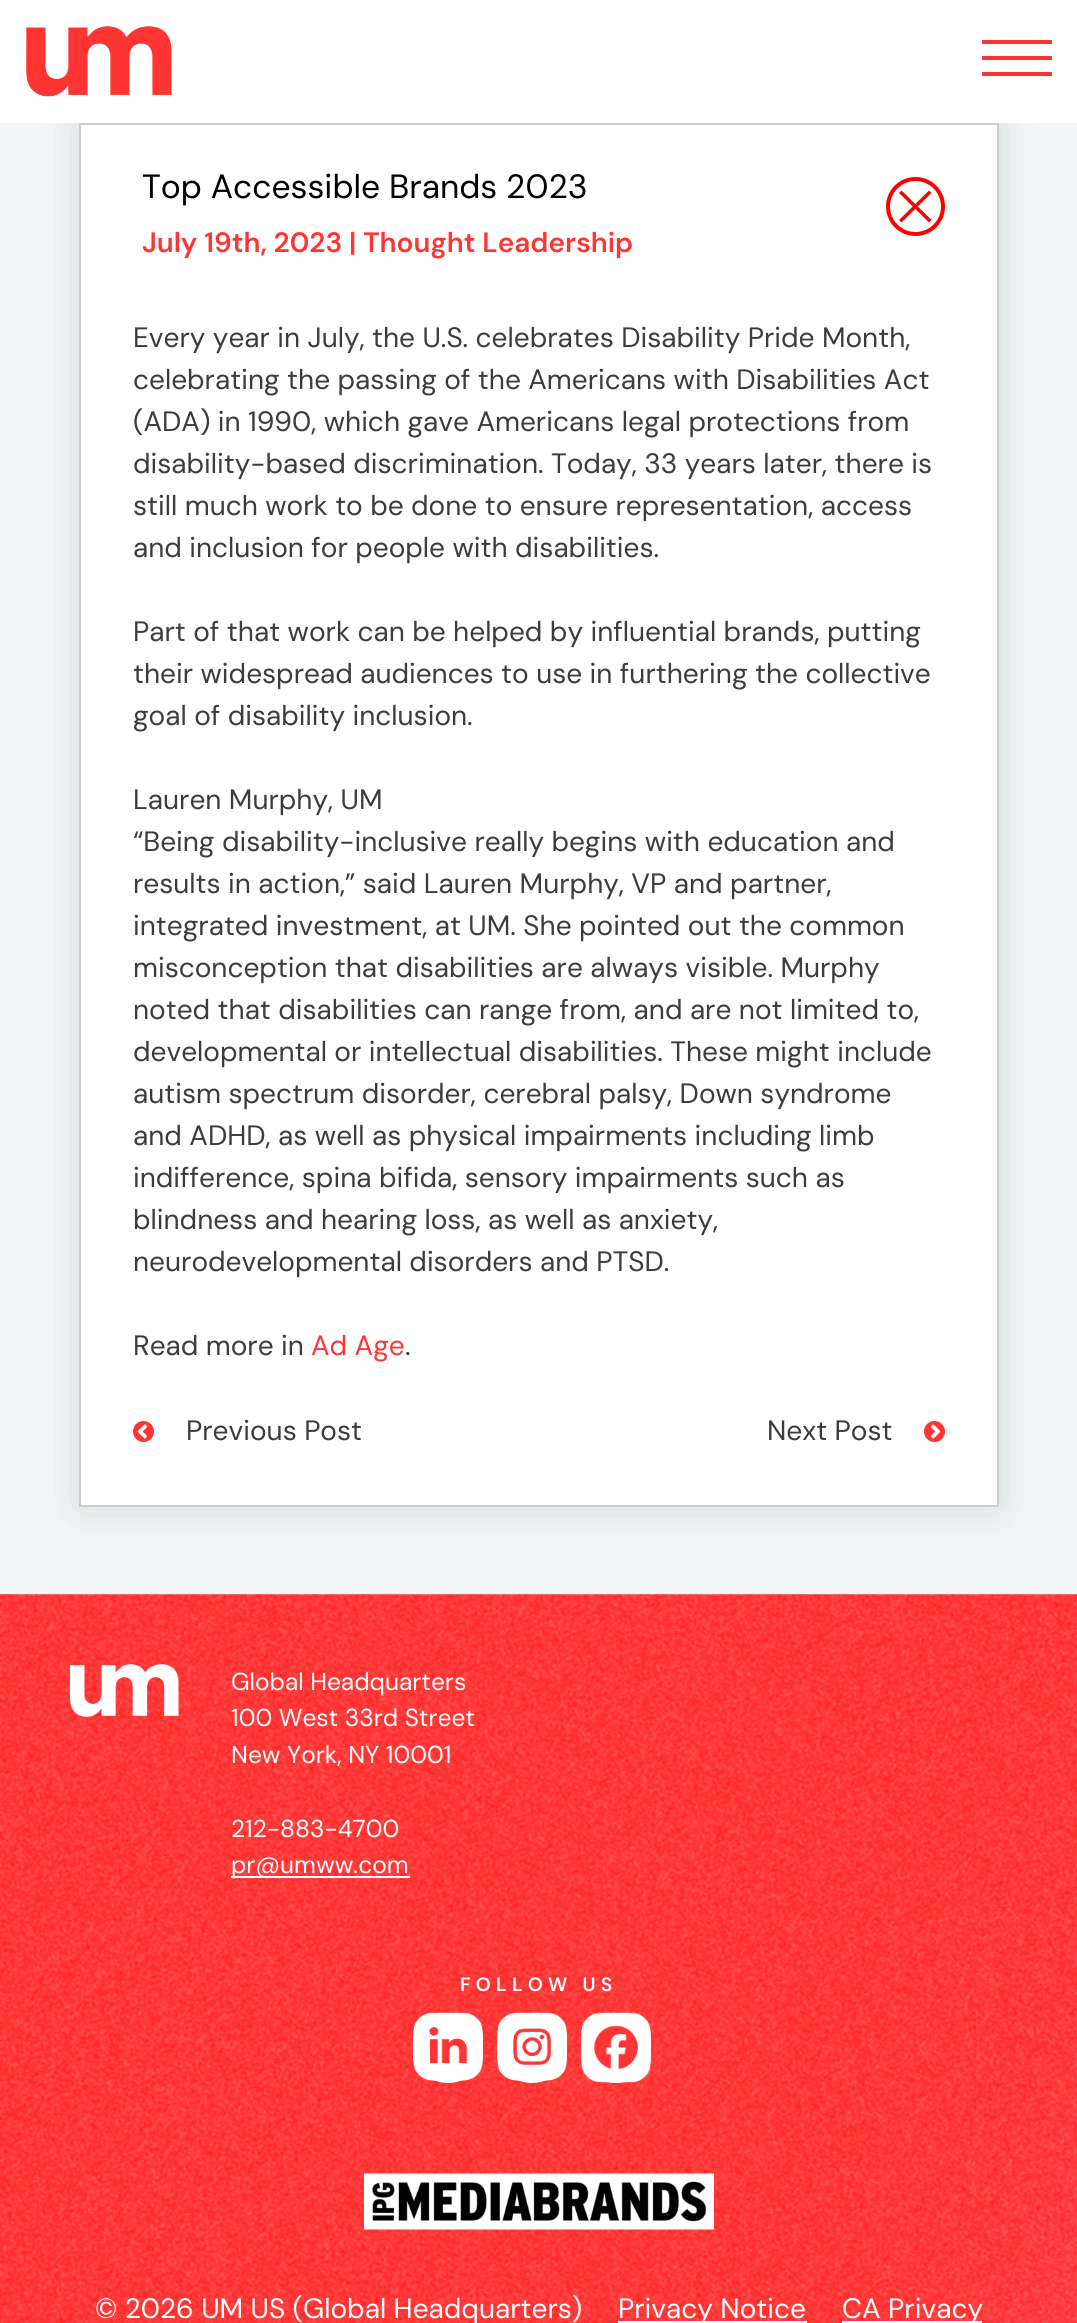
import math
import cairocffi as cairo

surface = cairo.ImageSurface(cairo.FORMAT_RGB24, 1077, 2323)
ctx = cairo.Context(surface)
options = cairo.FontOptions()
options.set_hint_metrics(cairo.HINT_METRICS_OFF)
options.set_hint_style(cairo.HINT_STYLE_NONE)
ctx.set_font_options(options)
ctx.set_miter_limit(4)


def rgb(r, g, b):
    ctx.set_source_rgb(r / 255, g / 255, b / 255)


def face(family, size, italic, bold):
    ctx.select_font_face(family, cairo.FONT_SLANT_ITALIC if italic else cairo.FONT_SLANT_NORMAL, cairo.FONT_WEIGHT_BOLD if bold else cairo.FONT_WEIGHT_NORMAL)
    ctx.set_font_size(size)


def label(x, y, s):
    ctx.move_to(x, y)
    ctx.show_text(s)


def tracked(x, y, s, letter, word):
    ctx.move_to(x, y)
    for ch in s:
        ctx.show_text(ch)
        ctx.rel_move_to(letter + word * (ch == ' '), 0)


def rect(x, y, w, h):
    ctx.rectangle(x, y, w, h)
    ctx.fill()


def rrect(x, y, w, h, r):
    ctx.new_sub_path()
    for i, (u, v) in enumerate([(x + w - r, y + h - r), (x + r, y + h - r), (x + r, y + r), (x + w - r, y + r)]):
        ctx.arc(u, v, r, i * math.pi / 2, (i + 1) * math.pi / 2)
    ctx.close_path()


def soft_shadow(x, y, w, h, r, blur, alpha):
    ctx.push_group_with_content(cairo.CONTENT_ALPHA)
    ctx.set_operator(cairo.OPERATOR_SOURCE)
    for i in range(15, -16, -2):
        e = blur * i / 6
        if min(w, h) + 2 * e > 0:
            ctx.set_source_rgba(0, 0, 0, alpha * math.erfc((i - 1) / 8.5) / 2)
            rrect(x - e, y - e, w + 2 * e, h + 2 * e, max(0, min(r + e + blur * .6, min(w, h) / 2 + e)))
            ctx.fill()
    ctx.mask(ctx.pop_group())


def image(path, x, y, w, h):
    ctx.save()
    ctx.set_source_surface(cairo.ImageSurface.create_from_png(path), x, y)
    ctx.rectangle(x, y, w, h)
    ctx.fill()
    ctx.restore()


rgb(242, 246, 247)
ctx.paint()
rgb(61, 60, 61)
soft_shadow(79, 123, 920, 1384, 0, 21, 0.15)
rgb(255, 255, 255)
rect(0, 0, 1077, 123)
image('image0.png', 26, 26, 146, 71)
rgb(255, 53, 52)
rect(982, 40, 70, 4)
rect(982, 56, 70, 4)
rect(982, 72, 70, 4)
rgb(255, 255, 255)
ctx.rectangle(80, 124, 918, 1382)
ctx.fill_preserve()
rgb(204, 204, 204)
ctx.stroke()
face('DM Sans', 33.6, 0, 0)
rgb(0, 0, 0)
label(142, 198, 'Top Accessible Brands 2023')
face('DM Sans SemiBold', 28, 0, 0)
rgb(255, 53, 52)
label(142, 252, 'July 19th, 2023 | Thought Leadership')
face('DM Sans', 28, 0, 0)
rgb(61, 60, 61)
label(133, 347, 'Every year in July, the U.S. celebrates Disability Pride Month,')
label(133, 389, 'celebrating the passing of the Americans with Disabilities Act')
label(133, 431, '(ADA) in 1990, which gave Americans legal protections from')
label(133, 473, 'disability-based discrimination. Today, 33 years later, there is')
label(133, 515, 'still much work to be done to ensure representation, access')
label(133, 557, 'and inclusion for people with disabilities.')
label(133, 641, 'Part of that work can be helped by influential brands, putting')
label(133, 683, 'their widespread audiences to use in furthering the collective')
label(133, 725, 'goal of disability inclusion.')
label(133, 809, 'Lauren Murphy, UM')
label(133, 851, '“Being disability-inclusive really begins with education and')
label(133, 893, 'results in action,” said Lauren Murphy, VP and partner,')
label(133, 935, 'integrated investment, at UM. She pointed out the common')
label(133, 977, 'misconception that disabilities are always visible. Murphy')
label(133, 1019, 'noted that disabilities can range from, and are not limited to,')
label(133, 1061, 'developmental or intellectual disabilities. These might include')
label(133, 1103, 'autism spectrum disorder, cerebral palsy, Down syndrome')
label(133, 1145, 'and ADHD, as well as physical impairments including limb')
label(133, 1187, 'indifference, spina bifida, sensory impairments such as')
label(133, 1229, 'blindness and hearing loss, as well as anxiety,')
label(133, 1271, 'neurodevelopmental disorders and PTSD.')
label(133, 1355, 'Read more in')
rgb(255, 53, 52)
label(311, 1355, 'Ad Age')
rgb(61, 60, 61)
label(405, 1355, '.')
image('image1.png', 133, 1421, 21, 21)
label(186, 1440, 'Previous Post')
label(767, 1440, 'Next Post')
image('image2.png', 924, 1421, 21, 21)
ctx.arc(915.5, 206.5, 27.5, 0, 2 * math.pi)
rgb(255, 0, 0)
ctx.set_line_width(4)
ctx.stroke()
ctx.new_path()
ctx.move_to(901.5, 190.5)
ctx.line_to(931.5, 220)
ctx.line_to(929, 222.5)
ctx.line_to(899, 193)
ctx.close_path()
ctx.fill()
ctx.new_path()
ctx.move_to(899, 220)
ctx.line_to(929, 190.5)
ctx.line_to(931.5, 193)
ctx.line_to(901.5, 222.5)
ctx.close_path()
ctx.fill()
image('image3.png', 0, 1594, 1077, 729)
image('image4.png', 70, 1664, 109, 53)
face('DM Sans', 24.5, 0, 0)
rgb(255, 255, 255)
label(231, 1690, 'Global Headquarters')
label(231, 1726, '100 West 33rd Street')
label(231, 1763, 'New York, NY 10001')
label(231, 1837, '212-883-4700')
rect(231, 1876, 179, 2)
label(231, 1873, 'pr@umww.com')
face('DM Sans SemiBold', 19.25, 0, 0)
tracked(460, 1991, 'FOLLOW US', 5.25, 0)
ctx.new_path()
ctx.arc(448, 2048, 35, 0, 2 * math.pi)
ctx.fill()
image('image5.png', 413, 2012, 70, 69)
ctx.arc(532, 2048, 35, 0, 2 * math.pi)
ctx.fill()
image('image6.png', 497, 2012, 70, 69)
ctx.arc(616, 2048, 35, 0, 2 * math.pi)
ctx.fill()
image('image7.png', 581, 2012, 70, 71)
image('image8.png', 364, 2173, 350, 57)
face('DM Sans', 28, 0, 0)
label(95, 2318, '© 2026 UM US (Global Headquarters)')
rect(618, 2321, 189, 2)
label(618, 2318, 'Privacy Notice')
rect(842, 2321, 140, 2)
label(842, 2318, 'CA Privacy')
surface.write_to_png('render.png')
